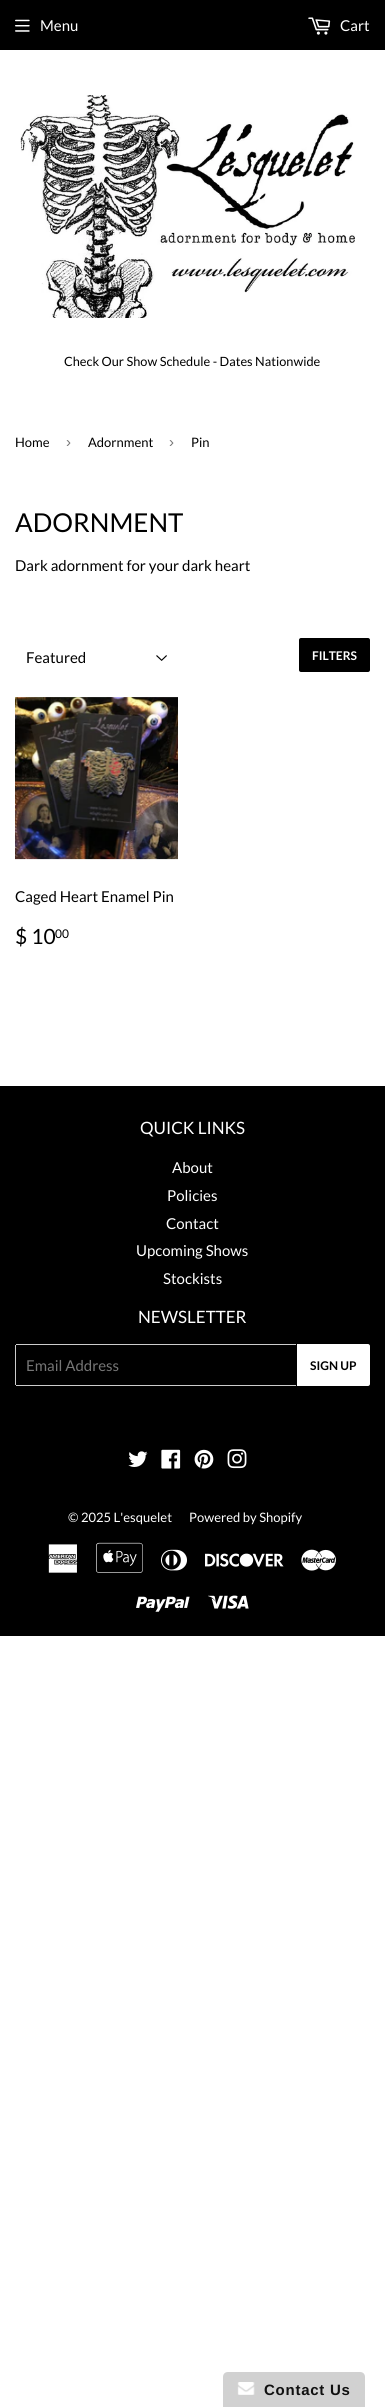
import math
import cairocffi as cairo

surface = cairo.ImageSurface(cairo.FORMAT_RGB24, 385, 2407)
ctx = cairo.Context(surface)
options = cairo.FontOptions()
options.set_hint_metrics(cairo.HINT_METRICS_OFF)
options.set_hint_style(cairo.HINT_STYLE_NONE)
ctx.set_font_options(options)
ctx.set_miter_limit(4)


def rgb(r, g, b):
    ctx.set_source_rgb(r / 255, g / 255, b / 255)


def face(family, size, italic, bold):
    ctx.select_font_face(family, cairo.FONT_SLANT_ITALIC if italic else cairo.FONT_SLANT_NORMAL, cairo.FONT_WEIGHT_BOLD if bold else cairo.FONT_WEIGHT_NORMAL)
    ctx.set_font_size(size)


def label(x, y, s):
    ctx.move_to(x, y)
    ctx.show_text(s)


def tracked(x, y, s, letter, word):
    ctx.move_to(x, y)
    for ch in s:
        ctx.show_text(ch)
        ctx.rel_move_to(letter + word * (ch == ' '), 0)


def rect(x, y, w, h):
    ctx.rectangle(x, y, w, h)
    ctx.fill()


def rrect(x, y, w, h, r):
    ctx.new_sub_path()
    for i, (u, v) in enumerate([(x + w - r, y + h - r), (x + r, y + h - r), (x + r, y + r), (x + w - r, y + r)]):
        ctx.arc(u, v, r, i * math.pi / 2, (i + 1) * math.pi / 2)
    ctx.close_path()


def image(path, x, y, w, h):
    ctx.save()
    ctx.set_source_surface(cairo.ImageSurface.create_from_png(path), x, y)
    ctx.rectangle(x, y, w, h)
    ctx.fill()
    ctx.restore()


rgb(255, 255, 255)
ctx.paint()
rgb(0, 0, 0)
rect(0, 0, 385, 50)
image('image0.png', 15, 19, 15, 13)
face('Lato', 15, 0, 0)
rgb(255, 255, 255)
label(40, 31, 'Menu')
image('image1.png', 308, 17, 23, 18)
label(340, 31, 'Cart')
image('image2.png', 20, 95, 335, 223)
face('Lato', 12.75, 0, 0)
rgb(0, 0, 0)
label(64, 366, 'Check Our Show Schedule - Dates Nationwide')
face('Lato', 13, 0, 0)
label(15, 447, 'Home')
face('Liberation Sans', 15, 0, 0)
rgb(118, 118, 118)
label(66, 447, '›')
face('Lato', 13, 0, 0)
rgb(0, 0, 0)
label(88, 447, 'Adornment')
face('Liberation Sans', 15, 0, 0)
rgb(118, 118, 118)
label(169, 447, '›')
face('Lato', 13, 0, 0)
rgb(0, 0, 0)
label(191, 447, 'Pin')
face('Lato', 26, 0, 0)
label(15, 532, 'ADORNMENT')
face('Lato', 15, 0, 0)
label(15, 571, 'Dark adornment for your dark heart')
image('image3.png', 156, 655, 11, 6)
label(26, 663, 'Featured')
rrect(299, 638, 71, 34, 2)
ctx.fill()
face('Lato', 12, 0, 1)
rgb(255, 255, 255)
label(312, 660, 'FILTERS')
image('image4.png', 15, 697, 163, 163)
face('Lato', 15, 0, 0)
rgb(0, 0, 0)
label(15, 902, 'Caged Heart Enamel Pin')
face('Lato', 21, 0, 0)
label(15, 944, '$ 10')
face('Lato', 12, 0, 0)
label(55, 938, '00')
rect(0, 1086, 385, 550)
face('Lato', 17, 0, 0)
rgb(255, 255, 255)
label(140, 1134, 'QUICK LINKS')
face('Lato', 15, 0, 0)
label(172, 1173, 'About')
label(167, 1201, 'Policies')
label(166, 1229, 'Contact')
label(136, 1256, 'Upcoming Shows')
label(163, 1284, 'Stockists')
face('Lato', 17, 0, 0)
label(138, 1323, 'NEWSLETTER')
rgb(204, 204, 204)
rect(16, 1344, 280, 1)
rect(16, 1385, 280, 1)
rect(15, 1345, 1, 40)
face('Lato', 15, 0, 0)
rgb(118, 118, 118)
label(26, 1371, 'Email Address')
rgb(255, 255, 255)
ctx.new_path()
ctx.move_to(297, 1344)
ctx.line_to(368, 1344)
ctx.curve_to(369, 1344, 370, 1345, 370, 1346)
ctx.line_to(370, 1384)
ctx.curve_to(370, 1385, 369, 1386, 368, 1386)
ctx.line_to(297, 1386)
ctx.close_path()
ctx.fill()
face('Lato', 12, 0, 1)
rgb(0, 0, 0)
label(310, 1370, 'SIGN UP')
image('image5.png', 128, 1451, 20, 16)
image('image6.png', 161, 1449, 20, 20)
image('image7.png', 194, 1449, 20, 20)
image('image8.png', 227, 1449, 20, 20)
face('Lato', 13, 0, 0)
rgb(255, 255, 255)
label(68, 1522, '© 2025 L\'esquelet')
label(189, 1522, 'Powered by Shopify')
image('image9.png', 48, 1544, 30, 29)
image('image10.png', 96, 1542, 47, 31)
image('image11.png', 161, 1549, 26, 22)
image('image12.png', 205, 1553, 79, 14)
image('image13.png', 301, 1549, 35, 22)
image('image14.png', 136, 1596, 54, 16)
image('image15.png', 208, 1595, 41, 14)
rgb(209, 209, 209)
ctx.new_path()
ctx.move_to(228, 2372)
ctx.line_to(360, 2372)
ctx.curve_to(363, 2372, 365, 2374, 365, 2377)
ctx.line_to(365, 2407)
ctx.line_to(223, 2407)
ctx.line_to(223, 2377)
ctx.curve_to(223, 2374, 225, 2372, 228, 2372)
ctx.close_path()
ctx.fill()
image('image16.png', 237, 2382, 18, 13)
face('Liberation Sans', 15, 0, 1)
rgb(16, 16, 16)
tracked(264, 2395, 'Contact Us', 0.75, 0)
surface.write_to_png('render.png')
